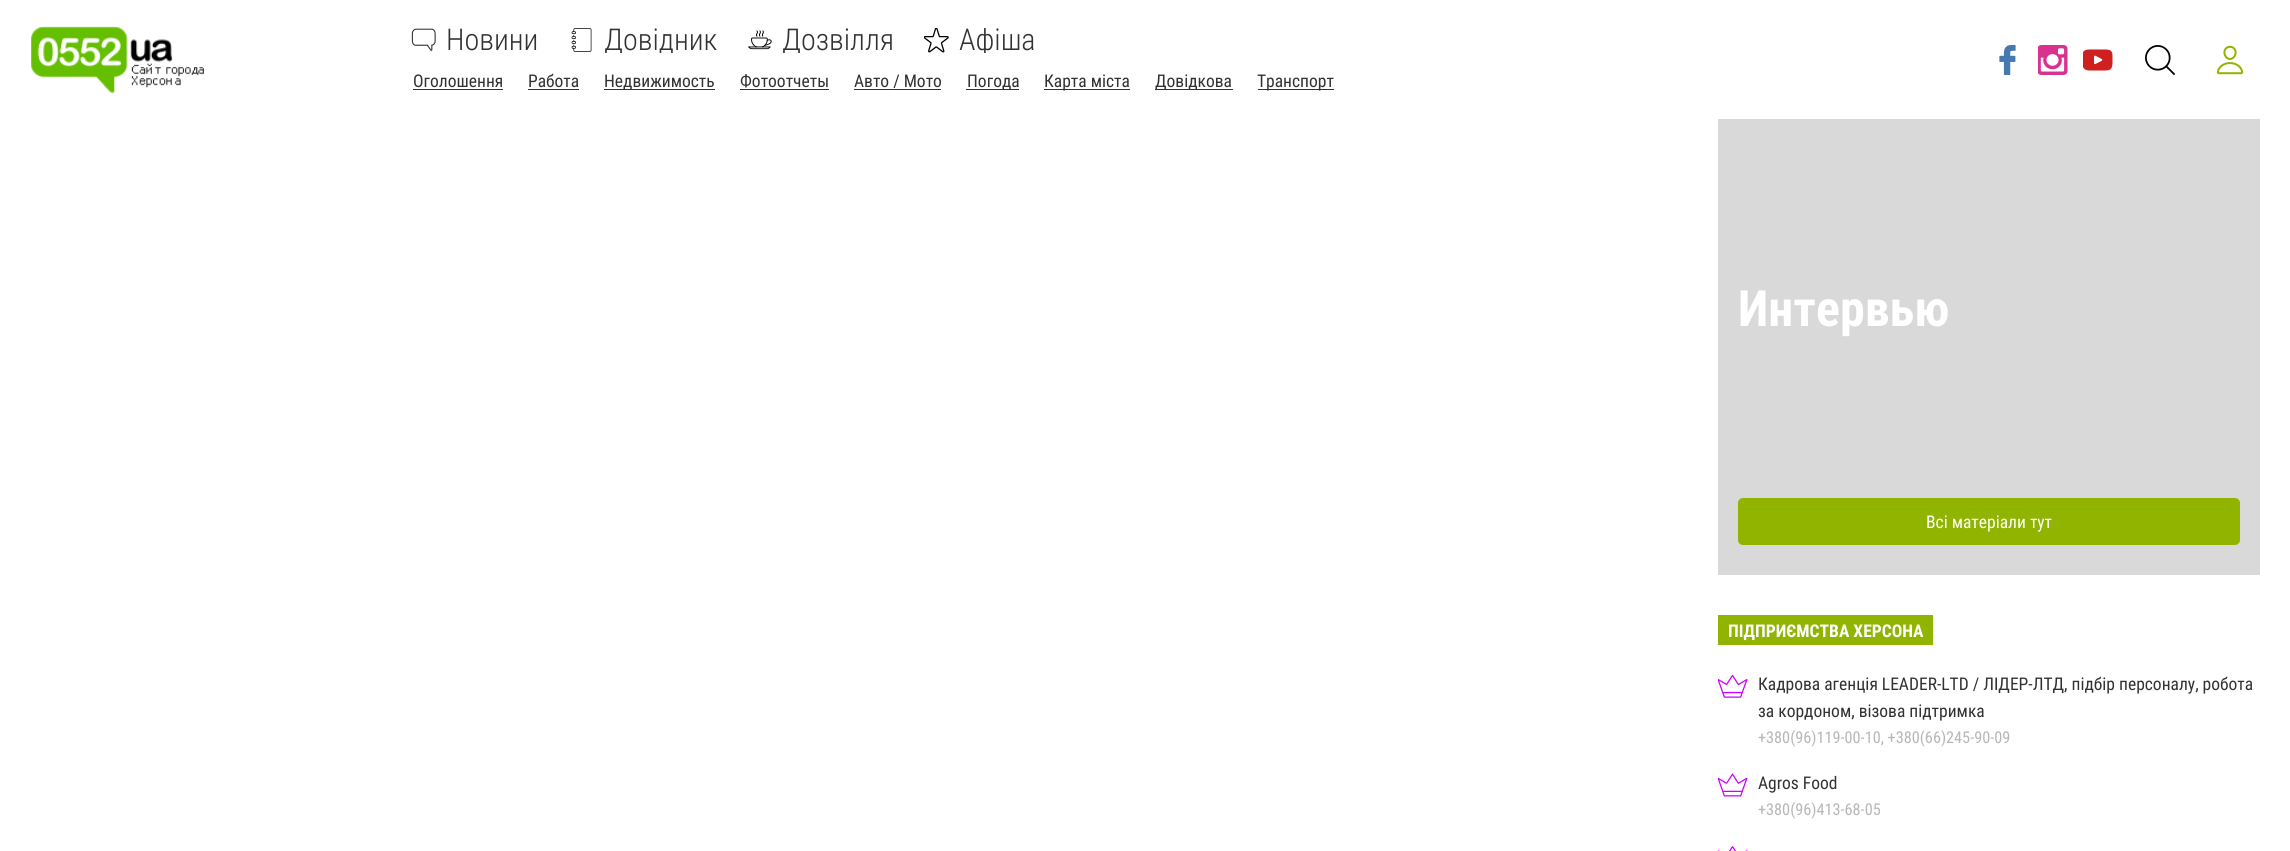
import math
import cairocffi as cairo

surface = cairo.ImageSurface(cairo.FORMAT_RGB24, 2290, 851)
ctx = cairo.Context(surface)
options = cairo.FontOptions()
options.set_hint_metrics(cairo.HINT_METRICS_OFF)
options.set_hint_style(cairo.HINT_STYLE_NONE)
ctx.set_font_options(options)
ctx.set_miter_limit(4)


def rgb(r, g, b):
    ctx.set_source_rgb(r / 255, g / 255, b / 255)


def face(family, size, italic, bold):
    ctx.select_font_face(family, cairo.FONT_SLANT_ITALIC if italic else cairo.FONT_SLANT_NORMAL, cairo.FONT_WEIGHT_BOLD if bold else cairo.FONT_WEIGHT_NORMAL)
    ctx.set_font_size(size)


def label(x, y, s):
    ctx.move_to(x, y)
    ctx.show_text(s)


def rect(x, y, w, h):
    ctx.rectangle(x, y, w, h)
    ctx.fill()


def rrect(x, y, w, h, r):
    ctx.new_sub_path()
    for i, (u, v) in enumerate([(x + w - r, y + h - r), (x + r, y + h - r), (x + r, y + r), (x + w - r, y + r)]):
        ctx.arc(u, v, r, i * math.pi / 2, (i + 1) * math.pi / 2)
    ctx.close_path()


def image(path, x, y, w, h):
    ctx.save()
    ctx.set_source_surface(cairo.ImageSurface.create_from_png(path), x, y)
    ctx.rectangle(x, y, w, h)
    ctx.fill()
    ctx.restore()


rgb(255, 255, 255)
ctx.paint()
image('image0.png', 31, 26, 173, 68)
image('image1.png', 411, 28, 25, 23)
face('Roboto Condensed Light', 30, 0, 0)
rgb(50, 50, 50)
label(446, 50, 'Новини')
image('image2.png', 571, 28, 21, 24)
ctx.save()
ctx.rectangle(569, 28, 149, 25)
ctx.clip()
label(604, 50, 'Довідник')
ctx.restore()
image('image3.png', 748, 30, 24, 20)
ctx.save()
ctx.rectangle(748, 28, 146, 25)
ctx.clip()
label(782, 50, 'Дозвілля')
ctx.restore()
image('image4.png', 924, 28, 25, 25)
ctx.save()
ctx.rectangle(924, 28, 111, 25)
ctx.clip()
label(959, 50, 'Афіша')
ctx.restore()
face('Roboto Condensed', 17.5, 0, 0)
label(413, 87, 'Оголошення')
rect(413, 89, 90, 1)
label(528, 87, 'Работа')
rect(528, 89, 51, 1)
rect(604, 89, 111, 1)
label(604, 87, 'Недвижимость')
label(740, 87, 'Фотоотчеты')
rect(740, 89, 89, 1)
label(854, 87, 'Авто / Мото')
rect(854, 89, 87, 1)
rect(966, 89, 53, 1)
label(967, 87, 'Погода')
rect(1044, 89, 86, 1)
label(1044, 87, 'Карта міста')
rect(1155, 89, 78, 1)
label(1155, 87, 'Довідкова')
rect(1258, 89, 76, 1)
label(1257, 87, 'Транспорт')
image('image5.png', 1999, 45, 17, 30)
image('image6.png', 2038, 45, 30, 30)
image('image7.png', 2083, 49, 30, 22)
image('image8.png', 2145, 45, 30, 30)
image('image9.png', 2216, 45, 28, 30)
rgb(217, 217, 217)
rect(1718, 119, 542, 456)
face('Roboto Condensed', 50, 0, 1)
rgb(255, 255, 255)
label(1738, 326, 'Интервью')
rgb(144, 180, 0)
rrect(1738, 498, 502, 47, 5)
ctx.fill()
face('Roboto Condensed', 17.5, 0, 0)
rgb(255, 255, 255)
label(1926, 528, 'Всі матеріали тут')
rgb(144, 180, 0)
rect(1718, 615, 215, 30)
face('Roboto Condensed', 17.5, 0, 1)
rgb(255, 255, 255)
label(1728, 637, 'ПІДПРИЄМСТВА ХЕРСОНА')
image('image10.png', 1718, 674, 30, 24)
face('Roboto Condensed', 17.5, 0, 0)
rgb(50, 50, 50)
label(1758, 690, 'Кадрова агенція LEADER-LTD / ЛІДЕР-ЛТД, підбір персоналу, робота')
label(1758, 717, 'за кордоном, візова підтримка')
face('Roboto Condensed', 16.25, 0, 0)
rgb(183, 183, 183)
label(1758, 743, '+380(96)119-00-10, +380(66)245-90-09')
image('image11.png', 1718, 773, 30, 24)
face('Roboto Condensed', 17.5, 0, 0)
rgb(50, 50, 50)
label(1758, 789, 'Agros Food')
face('Roboto Condensed', 16.25, 0, 0)
rgb(183, 183, 183)
label(1758, 815, '+380(96)413-68-05')
image('image12.png', 1718, 846, 30, 5)
surface.write_to_png('render.png')
